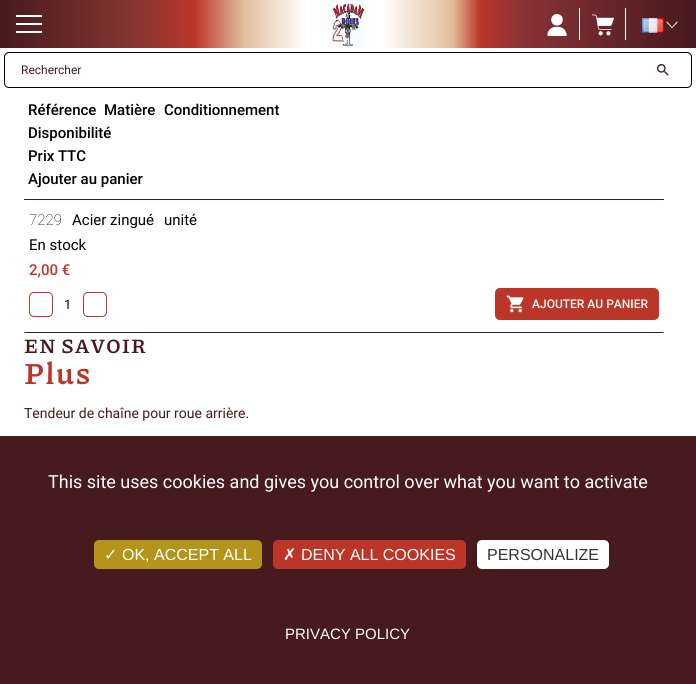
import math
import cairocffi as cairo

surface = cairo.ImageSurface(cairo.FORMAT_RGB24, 696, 684)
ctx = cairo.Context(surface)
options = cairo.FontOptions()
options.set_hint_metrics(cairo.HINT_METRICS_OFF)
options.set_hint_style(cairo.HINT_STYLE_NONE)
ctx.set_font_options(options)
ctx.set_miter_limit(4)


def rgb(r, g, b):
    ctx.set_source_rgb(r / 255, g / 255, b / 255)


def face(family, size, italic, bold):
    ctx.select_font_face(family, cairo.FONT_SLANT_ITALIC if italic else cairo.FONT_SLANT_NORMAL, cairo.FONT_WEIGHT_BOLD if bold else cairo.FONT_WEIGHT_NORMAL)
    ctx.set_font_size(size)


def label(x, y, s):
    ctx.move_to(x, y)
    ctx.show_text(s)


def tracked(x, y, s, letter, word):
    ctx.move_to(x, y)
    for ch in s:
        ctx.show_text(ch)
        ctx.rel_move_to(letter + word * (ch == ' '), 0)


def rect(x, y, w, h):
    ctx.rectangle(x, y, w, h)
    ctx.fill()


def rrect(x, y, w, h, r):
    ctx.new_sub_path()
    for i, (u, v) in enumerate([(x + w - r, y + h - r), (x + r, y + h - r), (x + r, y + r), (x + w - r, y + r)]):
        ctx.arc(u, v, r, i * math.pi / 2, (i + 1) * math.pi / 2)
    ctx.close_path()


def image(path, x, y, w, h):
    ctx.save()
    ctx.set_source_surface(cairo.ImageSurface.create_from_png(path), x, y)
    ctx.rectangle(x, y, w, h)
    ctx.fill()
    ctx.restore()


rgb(255, 255, 255)
ctx.paint()
gradient = cairo.LinearGradient(0, 24, 696, 24)
gradient.add_color_stop_rgba(0, 0.278, 0.102, 0.114, 1)
gradient.add_color_stop_rgba(0.2, 0.537, 0.212, 0.196, 1)
gradient.add_color_stop_rgba(0.28, 0.733, 0.212, 0.157, 1)
gradient.add_color_stop_rgba(0.35, 0.886, 0.745, 0.608, 1)
gradient.add_color_stop_rgba(0.44, 1, 1, 1, 1)
gradient.add_color_stop_rgba(0.51, 0.965, 0.98, 0.988, 1)
gradient.add_color_stop_rgba(0.55, 1, 1, 1, 1)
gradient.add_color_stop_rgba(0.65, 0.886, 0.745, 0.608, 1)
gradient.add_color_stop_rgba(0.69, 0.733, 0.212, 0.157, 1)
gradient.add_color_stop_rgba(0.75, 0.533, 0.196, 0.212, 1)
gradient.add_color_stop_rgba(1, 0.278, 0.102, 0.114, 1)
ctx.set_source(gradient)
rect(0, 0, 696, 48)
rgb(255, 255, 255)
rect(16, 15, 26, 2)
rect(16, 23, 26, 2)
rect(16, 31, 26, 2)
image('image0.png', 332, 3, 33, 43)
image('image1.png', 547, 14, 20, 22)
rect(579, 8, 1, 32)
image('image2.png', 592, 14, 22, 22)
rect(625, 8, 1, 32)
image('image3.png', 642, 18, 22, 15)
ctx.new_path()
ctx.move_to(677, 21.5)
ctx.line_to(677.5, 22.5)
ctx.line_to(672, 28)
ctx.line_to(671.5, 27.5)
ctx.close_path()
ctx.fill()
ctx.new_path()
ctx.move_to(667, 21.5)
ctx.line_to(672.5, 27.5)
ctx.line_to(672, 28)
ctx.line_to(666.5, 22.5)
ctx.close_path()
ctx.fill()
rrect(4.5, 52.5, 687, 35, 4.5)
rgb(0, 0, 0)
ctx.set_line_width(1)
ctx.stroke()
face('Roboto', 12, 0, 0)
rgb(71, 26, 29)
label(21, 74, 'Rechercher')
image('image4.png', 657, 64, 12, 12)
face('Roboto Medium', 15, 0, 0)
rgb(0, 0, 0)
label(28, 115, 'Référence')
label(104, 115, 'Matière')
label(164, 115, 'Conditionnement')
label(28, 138, 'Disponibilité')
label(28, 161, 'Prix TTC')
rgb(71, 26, 29)
rect(24, 199, 640, 1)
rgb(0, 0, 0)
label(28, 184, 'Ajouter au panier')
face('Roboto Thin', 15, 0, 0)
label(29, 225, '7229')
face('Roboto', 15, 0, 0)
label(72, 225, 'Acier zingué')
label(164, 225, 'unité')
label(29, 250, 'En stock')
face('Roboto Medium', 15, 0, 0)
rgb(187, 54, 40)
label(29, 275, '2,00 €')
rgb(71, 26, 29)
ctx.new_path()
ctx.move_to(664, 333)
ctx.line_to(24, 333)
ctx.line_to(25, 332)
ctx.line_to(663, 332)
ctx.close_path()
ctx.fill()
rrect(29.5, 292.5, 23, 24, 4.5)
rgb(187, 54, 40)
ctx.stroke()
face('Roboto', 13, 0, 0)
rgb(0, 0, 0)
label(64, 309, '1')
rrect(83.5, 292.5, 23, 24, 4.5)
rgb(187, 54, 40)
ctx.stroke()
rrect(495.5, 288.5, 163, 31, 4.5)
ctx.fill_preserve()
ctx.stroke()
image('image5.png', 506, 295, 18, 18)
face('Roboto Medium', 12, 0, 0)
rgb(255, 255, 255)
label(532, 308, 'AJOUTER AU PANIER')
face('Piazzolla', 20, 0, 1)
rgb(71, 26, 29)
tracked(24, 353, 'EN SAVOIR', 1, 0)
face('Piazzolla', 30, 0, 1)
rgb(187, 54, 40)
tracked(24, 384, 'Plus', 1.5, 0)
face('Roboto', 14, 0, 0)
rgb(71, 26, 29)
label(24, 418, 'Tendeur de chaîne pour roue arrière.')
rect(0, 436, 696, 248)
face('Roboto', 18, 0, 0)
rgb(255, 255, 255)
label(48, 488, 'This site uses cookies and gives you control over what you want to activate')
rgb(180, 149, 27)
rrect(94, 540, 168, 29, 5)
ctx.fill()
face('DejaVu Sans', 16, 0, 0)
rgb(255, 255, 255)
label(104, 560, '✓')
face('Liberation Sans', 16, 0, 0)
label(122, 560, 'OK, ACCEPT ALL')
rgb(187, 54, 40)
rrect(273, 540, 193, 29, 5)
ctx.fill()
face('DejaVu Sans', 16, 0, 0)
rgb(255, 255, 255)
label(283, 560, '✗')
face('Liberation Sans', 16, 0, 0)
label(301, 560, 'DENY ALL COOKIES')
rrect(477, 540, 132, 29, 5)
ctx.fill()
rgb(51, 51, 51)
label(487, 560, 'PERSONALIZE')
face('Liberation Sans', 15, 0, 0)
rgb(255, 255, 255)
label(285, 639, 'PRIVACY POLICY')
surface.write_to_png('render.png')
